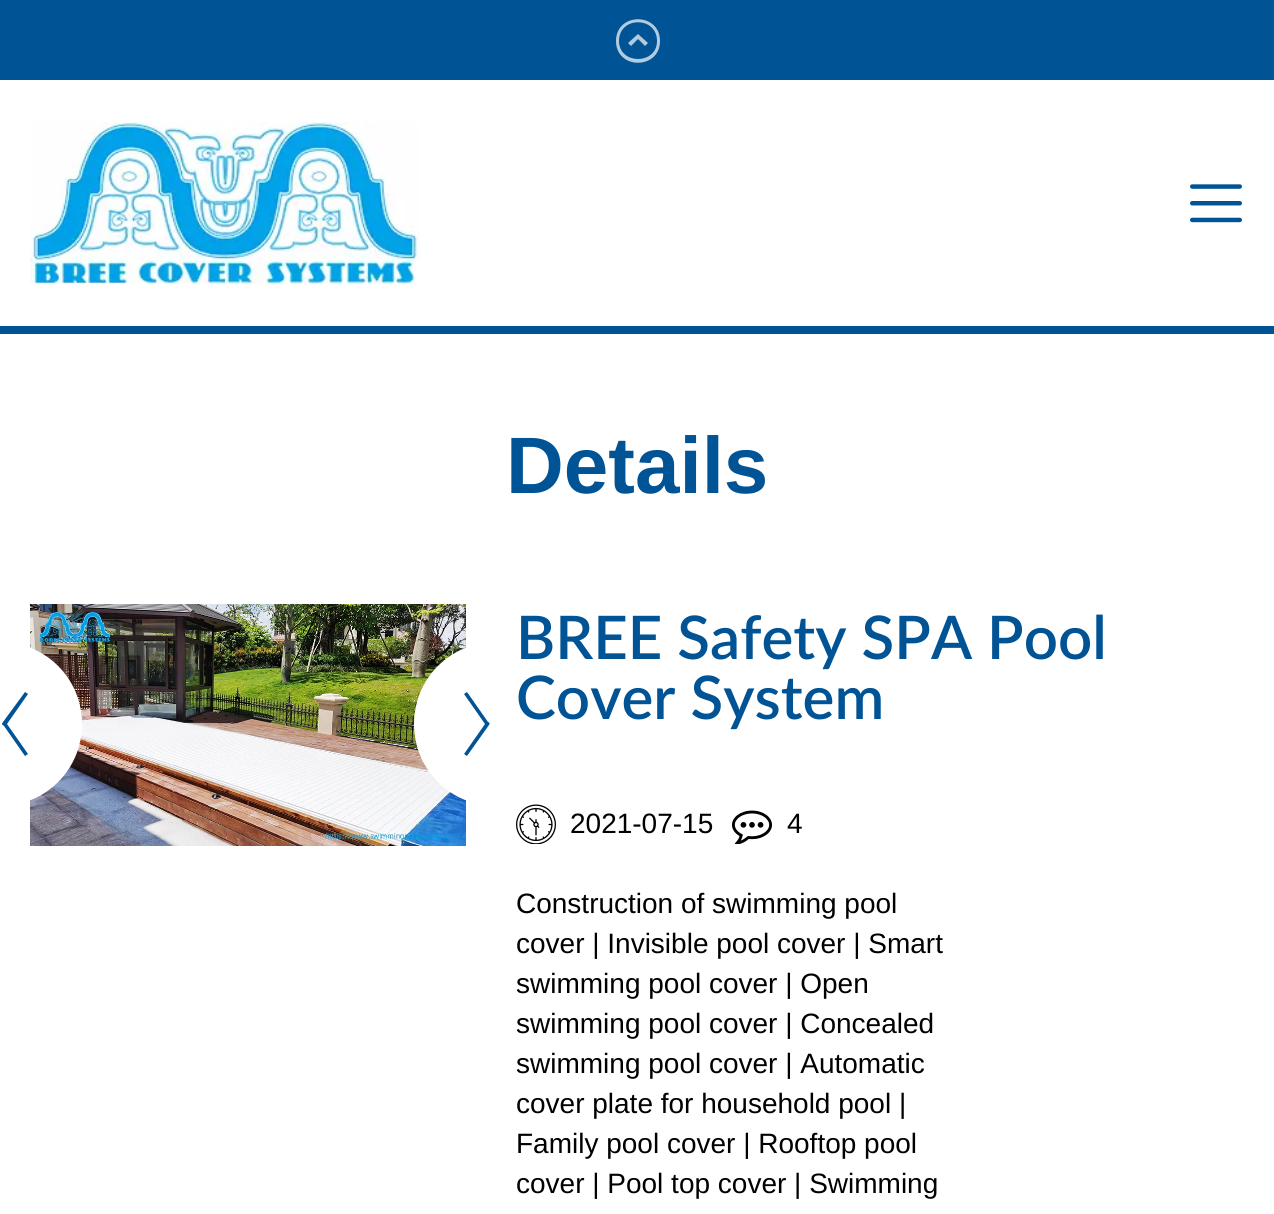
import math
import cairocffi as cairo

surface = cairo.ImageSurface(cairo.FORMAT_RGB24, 1274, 1214)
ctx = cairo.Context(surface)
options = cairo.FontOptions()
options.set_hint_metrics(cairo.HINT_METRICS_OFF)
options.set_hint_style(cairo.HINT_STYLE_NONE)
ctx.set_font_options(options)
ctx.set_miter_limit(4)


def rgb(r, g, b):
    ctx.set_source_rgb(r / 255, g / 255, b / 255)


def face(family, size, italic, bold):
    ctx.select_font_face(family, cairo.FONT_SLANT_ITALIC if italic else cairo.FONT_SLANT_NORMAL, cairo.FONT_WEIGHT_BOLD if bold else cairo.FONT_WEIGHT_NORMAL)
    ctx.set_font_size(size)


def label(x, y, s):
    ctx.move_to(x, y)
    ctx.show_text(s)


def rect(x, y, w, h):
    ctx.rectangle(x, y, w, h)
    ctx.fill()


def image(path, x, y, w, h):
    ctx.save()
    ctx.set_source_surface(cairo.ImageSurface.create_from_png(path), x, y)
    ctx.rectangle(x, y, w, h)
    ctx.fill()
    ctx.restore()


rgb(255, 255, 255)
ctx.paint()
rgb(0, 83, 149)
rect(0, 326, 1274, 8)
rect(0, 0, 1274, 80)
rgb(179, 203, 223)
ctx.new_path()
ctx.move_to(660, 41)
ctx.curve_to(660, 12, 616, 12, 616, 41)
ctx.curve_to(616, 70, 660, 70, 660, 41)
ctx.close_path()
ctx.move_to(619, 41)
ctx.curve_to(619, 16, 657, 16, 657, 41)
ctx.curve_to(657, 65, 619, 65, 619, 41)
ctx.close_path()
ctx.move_to(648, 43)
ctx.line_to(638, 34)
ctx.line_to(628, 43)
ctx.line_to(631, 46)
ctx.line_to(638, 39)
ctx.line_to(645, 46)
ctx.close_path()
ctx.fill()
image('image0.png', 30, 122, 390, 162)
image('image1.png', 1190, 184, 52, 39)
face('Liberation Sans', 80, 0, 1)
rgb(0, 83, 149)
label(506, 493, 'Details')
image('image2.png', 30, 604, 436, 242)
rgb(255, 255, 255)
ctx.new_path()
ctx.move_to(0, 642)
ctx.curve_to(45.5, 642, 82, 678.5, 82, 724)
ctx.curve_to(82, 769.5, 45.5, 806, 0, 806)
ctx.close_path()
ctx.fill()
rgb(0, 83, 149)
ctx.new_path()
ctx.move_to(25, 692)
ctx.line_to(28, 694)
ctx.line_to(7, 724)
ctx.line_to(28, 754)
ctx.line_to(25, 756)
ctx.line_to(4, 726)
ctx.curve_to(2, 724, 1, 725, 3, 722)
ctx.close_path()
ctx.fill()
rgb(255, 255, 255)
ctx.new_path()
ctx.move_to(496, 642)
ctx.line_to(496, 806)
ctx.curve_to(450.5, 806, 414, 769.5, 414, 724)
ctx.curve_to(414, 678.5, 450.5, 642, 496, 642)
ctx.close_path()
ctx.fill()
rgb(0, 83, 149)
ctx.new_path()
ctx.move_to(467, 756)
ctx.line_to(464, 754)
ctx.line_to(485, 724)
ctx.line_to(464, 694)
ctx.line_to(467, 692)
ctx.line_to(488, 722)
ctx.curve_to(490, 723, 490, 723, 489, 725)
ctx.close_path()
ctx.fill()
face('Lato SemiBold', 60, 0, 0)
label(516, 659, 'BREE Safety SPA Pool')
label(516, 719, 'Cover System')
image('image3.png', 516, 804, 40, 40)
face('Liberation Sans', 28, 0, 0)
rgb(0, 0, 0)
label(570, 833, '2021-07-15')
image('image4.png', 732, 810, 40, 34)
label(787, 833, '4')
label(516, 913, 'Construction of swimming pool')
label(516, 953, 'cover | Invisible pool cover | Smart')
label(516, 993, 'swimming pool cover | Open')
label(516, 1033, 'swimming pool cover | Concealed')
label(516, 1073, 'swimming pool cover | Automatic')
label(516, 1113, 'cover plate for household pool |')
label(516, 1153, 'Family pool cover | Rooftop pool')
label(516, 1193, 'cover | Pool top cover | Swimming')
surface.write_to_png('render.png')
